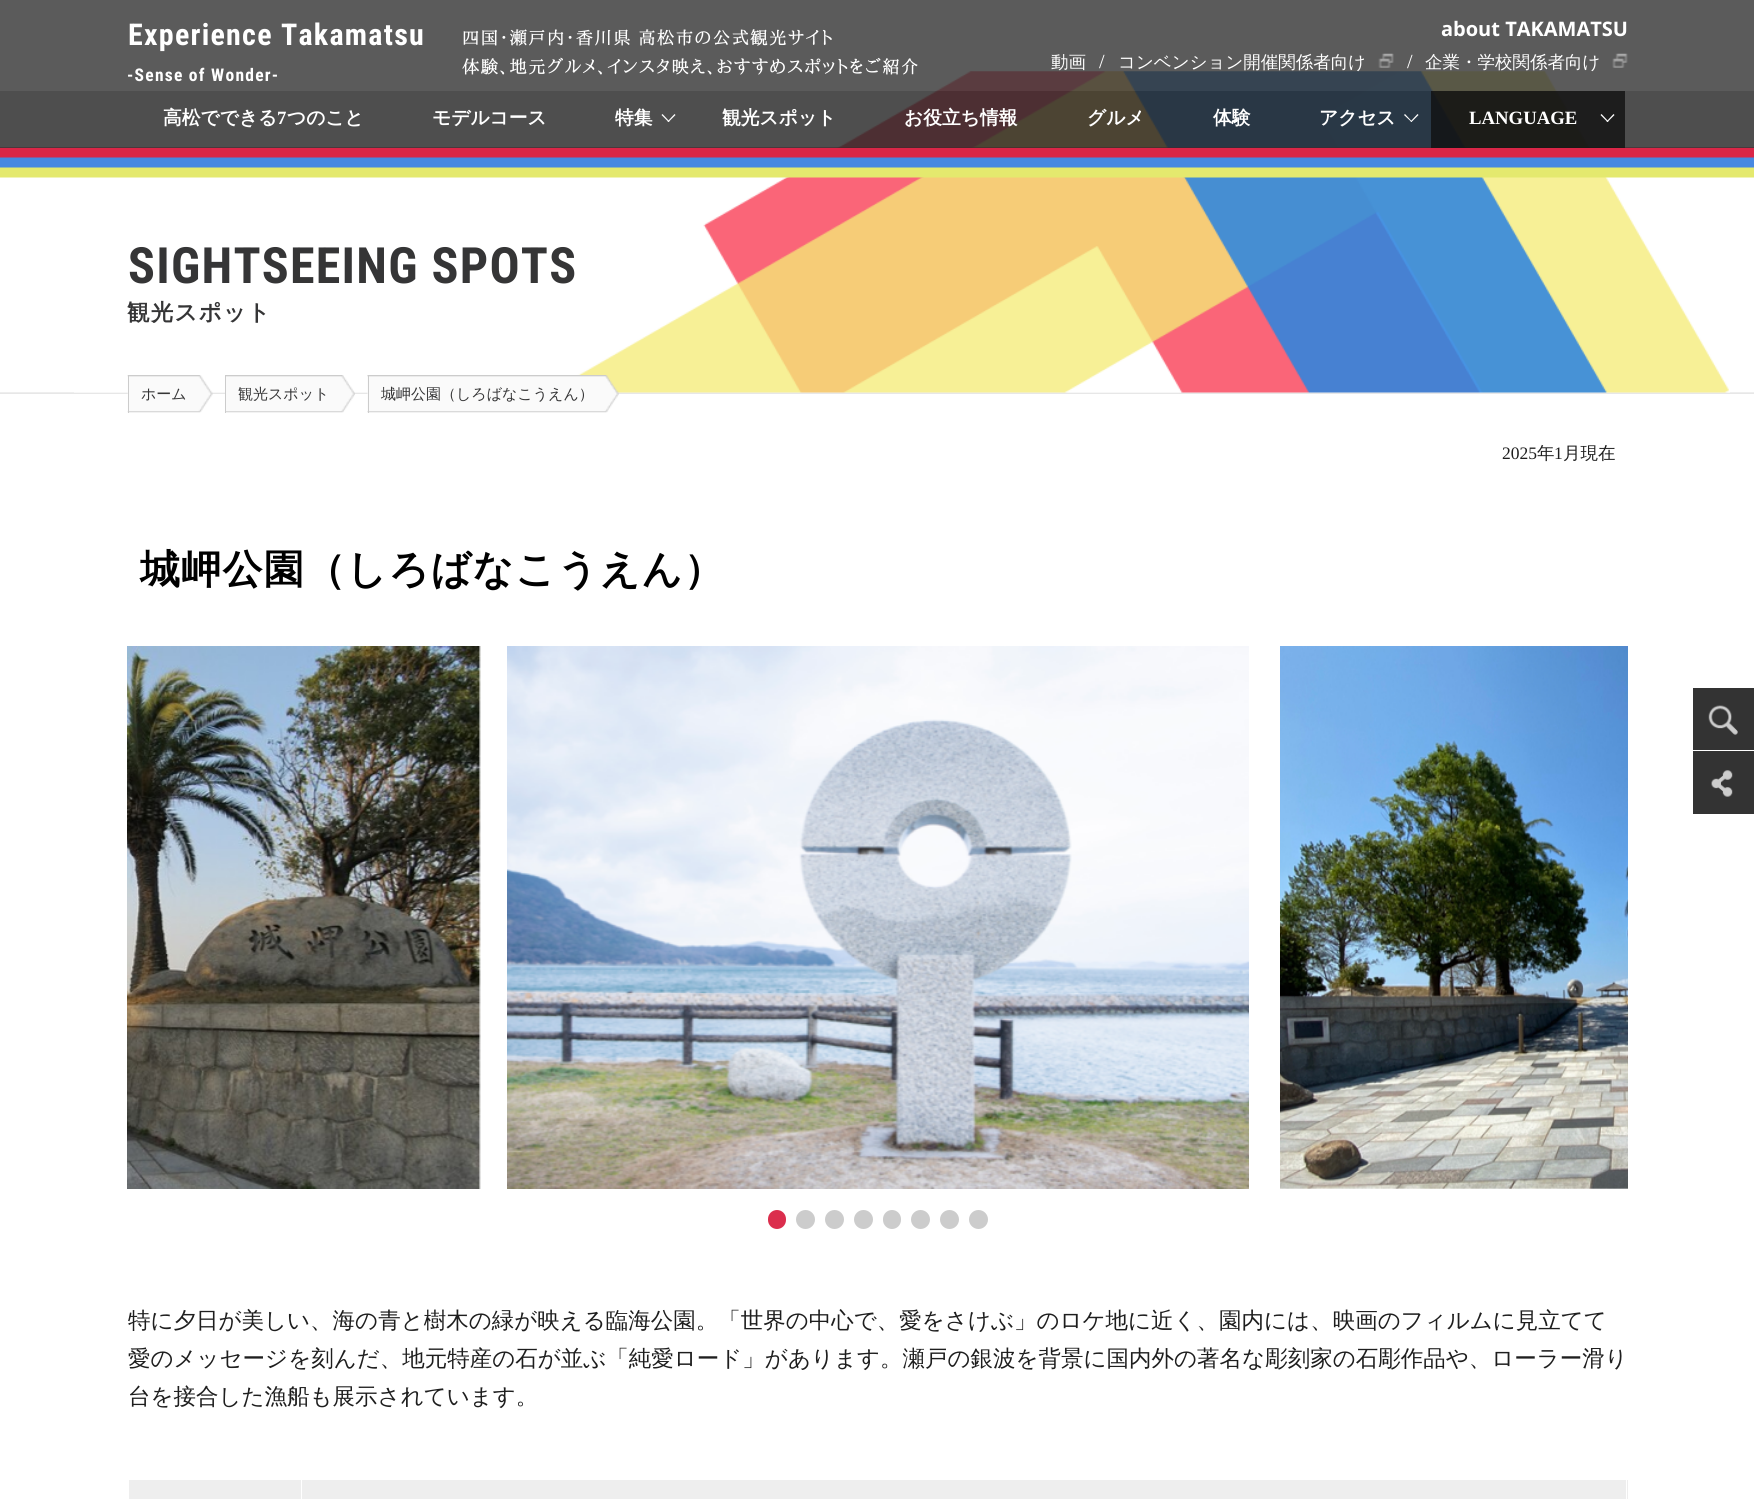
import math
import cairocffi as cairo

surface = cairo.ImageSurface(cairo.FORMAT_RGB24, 1754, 1499)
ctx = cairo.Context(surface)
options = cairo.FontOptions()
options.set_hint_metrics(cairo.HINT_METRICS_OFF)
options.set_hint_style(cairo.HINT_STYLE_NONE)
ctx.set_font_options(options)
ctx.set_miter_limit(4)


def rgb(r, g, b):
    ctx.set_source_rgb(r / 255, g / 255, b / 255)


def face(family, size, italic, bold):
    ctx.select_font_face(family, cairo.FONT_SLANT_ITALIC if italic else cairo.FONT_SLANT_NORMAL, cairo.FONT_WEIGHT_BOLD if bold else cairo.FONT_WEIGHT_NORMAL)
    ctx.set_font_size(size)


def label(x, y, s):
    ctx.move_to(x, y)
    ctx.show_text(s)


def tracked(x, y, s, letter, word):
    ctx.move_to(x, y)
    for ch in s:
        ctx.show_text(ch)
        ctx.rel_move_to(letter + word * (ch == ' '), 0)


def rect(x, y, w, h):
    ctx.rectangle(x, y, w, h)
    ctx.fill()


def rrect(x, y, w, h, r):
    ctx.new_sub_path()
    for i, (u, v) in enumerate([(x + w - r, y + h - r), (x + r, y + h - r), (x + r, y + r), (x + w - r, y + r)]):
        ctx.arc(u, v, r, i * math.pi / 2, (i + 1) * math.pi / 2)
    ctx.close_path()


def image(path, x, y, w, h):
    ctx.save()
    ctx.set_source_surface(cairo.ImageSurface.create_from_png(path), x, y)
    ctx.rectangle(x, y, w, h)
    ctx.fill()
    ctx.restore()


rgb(255, 255, 255)
ctx.paint()
image('image0.png', 0, 392, 1754, 2)
image('image1.png', 74, 71, 1656, 322)
image('image2.png', 0, 147, 1754, 31)
ctx.set_source_rgba(0.2, 0.2, 0.2, 0.8)
rect(0, 0, 1754, 91)
face('Roboto Condensed', 30, 0, 1)
rgb(255, 255, 255)
tracked(128, 45, 'Experience Takamatsu', 1.25, 0)
face('Roboto Condensed', 17.5, 0, 1)
tracked(127, 81, '-Sense of Wonder-', 1.25, 0)
face('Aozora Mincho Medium', 17.5, 0, 0)
tracked(462, 44, '四国・瀬戸内・香川県 高松市の公式観光サイト', 1.25, 0)
tracked(462, 73, '体験、地元グルメ、インスタ映え、おすすめスポットをご紹介', 1.25, 0)
face('Open Sans', 20, 0, 1)
label(1441, 36, 'about TAKAMATSU')
face('WenQuanYi Zen Hei Medium', 17.5, 0, 0)
label(1051, 68, '動画')
face('Liberation Serif', 20, 0, 0)
label(1099, 68, '/')
face('WenQuanYi Zen Hei Medium', 17.5, 0, 0)
label(1118, 68, 'コンベンション開催関係者向け')
image('image3.png', 1378, 53, 16, 15)
face('Liberation Serif', 20, 0, 0)
label(1407, 68, '/')
face('WenQuanYi Zen Hei Medium', 17.5, 0, 0)
label(1425, 68, '企業・学校関係者向け')
image('image4.png', 1612, 53, 16, 15)
ctx.set_source_rgba(0.133, 0.133, 0.133, 0.8)
rect(0, 91, 1754, 57)
face('WenQuanYi Zen Hei', 18.75, 0, 1)
rgb(255, 255, 255)
label(163, 124, '高松でできる')
face('Liberation Serif', 18.75, 0, 1)
label(277, 124, '7')
face('WenQuanYi Zen Hei', 18.75, 0, 1)
label(287, 124, 'つのこと')
label(432, 124, 'モデルコース')
label(615, 124, '特集')
ctx.new_path()
ctx.move_to(674.5, 114)
ctx.line_to(675.5, 115)
ctx.line_to(668.5, 122)
ctx.line_to(667.5, 121.5)
ctx.close_path()
ctx.fill()
ctx.new_path()
ctx.move_to(662.5, 114)
ctx.line_to(669.5, 121.5)
ctx.line_to(668.5, 122)
ctx.line_to(661.5, 115)
ctx.close_path()
ctx.fill()
label(722, 124, '観光スポット')
label(904, 124, 'お役立ち情報')
label(1087, 124, 'グルメ')
label(1213, 124, '体験')
label(1319, 124, 'アクセス')
ctx.new_path()
ctx.move_to(1417.5, 114)
ctx.line_to(1418.5, 115)
ctx.line_to(1411.5, 122)
ctx.line_to(1410.5, 121.5)
ctx.close_path()
ctx.fill()
ctx.new_path()
ctx.move_to(1405, 114)
ctx.line_to(1412, 121.5)
ctx.line_to(1411.5, 122)
ctx.line_to(1404, 115)
ctx.close_path()
ctx.fill()
ctx.set_source_rgba(0.067, 0.067, 0.067, 0.8)
rect(1431, 91, 194, 57)
face('Liberation Serif', 18.75, 0, 1)
rgb(255, 255, 255)
label(1469, 124, 'LANGUAGE')
ctx.new_path()
ctx.move_to(1613.5, 114)
ctx.line_to(1614.5, 115)
ctx.line_to(1607.5, 122)
ctx.line_to(1606.5, 121.5)
ctx.close_path()
ctx.fill()
ctx.new_path()
ctx.move_to(1601.5, 114)
ctx.line_to(1608.5, 121.5)
ctx.line_to(1607.5, 122)
ctx.line_to(1600.5, 115)
ctx.close_path()
ctx.fill()
face('Roboto Condensed', 50, 0, 1)
rgb(53, 53, 54)
tracked(128, 283, 'SIGHTSEEING SPOTS', 1.25, 0)
face('WenQuanYi Zen Hei', 22.5, 0, 1)
tracked(127, 320, '観光スポット', 1.25, 0)
image('image5.png', 127, 375, 86, 38)
rgb(204, 204, 204)
rect(128, 375, 1, 38)
face('WenQuanYi Zen Hei Medium', 15, 0, 0)
rgb(53, 53, 54)
label(141, 399, 'ホーム')
image('image6.png', 226, 375, 129, 38)
rgb(204, 204, 204)
rect(225, 375, 1, 38)
rgb(53, 53, 54)
label(238, 399, '観光スポット')
image('image7.png', 367, 375, 252, 38)
rgb(204, 204, 204)
rect(368, 375, 1, 38)
rgb(53, 53, 54)
label(381, 399, '城岬公園（しろばなこうえん）')
face('Liberation Serif', 17.5, 0, 0)
rgb(30, 30, 30)
label(1502, 459, '2025')
face('WenQuanYi Zen Hei Medium', 17.5, 0, 0)
label(1537, 459, '年')
face('Liberation Serif', 17.5, 0, 0)
label(1554, 459, '1')
face('WenQuanYi Zen Hei Medium', 17.5, 0, 0)
label(1563, 459, '月現在')
face('WenQuanYi Zen Hei', 40, 0, 1)
rgb(0, 0, 0)
tracked(140, 583, '城岬公園（しろばなこうえん）', 1.25, 0)
image('image8.png', 127, 646, 354, 543)
image('image9.png', 507, 646, 742, 543)
image('image10.png', 1280, 646, 348, 543)
rgb(219, 46, 77)
rrect(768, 1210, 18, 19, 9)
ctx.fill()
rgb(204, 204, 204)
ctx.arc(805.5, 1219.5, 9.5, 0, 2 * math.pi)
ctx.fill()
ctx.arc(834.5, 1219.5, 9.5, 0, 2 * math.pi)
ctx.fill()
ctx.arc(863.5, 1219.5, 9.5, 0, 2 * math.pi)
ctx.fill()
rrect(883, 1210, 18, 19, 9)
ctx.fill()
ctx.arc(920.5, 1219.5, 9.5, 0, 2 * math.pi)
ctx.fill()
ctx.arc(949.5, 1219.5, 9.5, 0, 2 * math.pi)
ctx.fill()
ctx.arc(978.5, 1219.5, 9.5, 0, 2 * math.pi)
ctx.fill()
face('WenQuanYi Zen Hei Medium', 22.5, 0, 0)
rgb(30, 30, 30)
label(128, 1328, '特に夕日が美しい、海の青と樹木の緑が映える臨海公園。「世界の中心で、愛をさけぶ」のロケ地に近く、園内には、映画のフィルムに見立てて')
label(128, 1366, '愛のメッセージを刻んだ、地元特産の石が並ぶ「純愛ロード」があります。瀬戸の銀波を背景に国内外の著名な彫刻家の石彫作品や、ローラー滑り')
label(128, 1404, '台を接合した漁船も展示されています。')
rgb(238, 238, 238)
rect(129, 1480, 1499, 19)
rgb(255, 255, 255)
rect(1626, 1479, 1, 20)
rect(301, 1479, 1, 20)
rgb(51, 51, 51)
rect(1693, 688, 61, 62)
image('image11.png', 1708, 705, 30, 30)
rect(1693, 751, 61, 63)
image('image12.png', 1711, 770, 22, 27)
surface.write_to_png('render.png')
